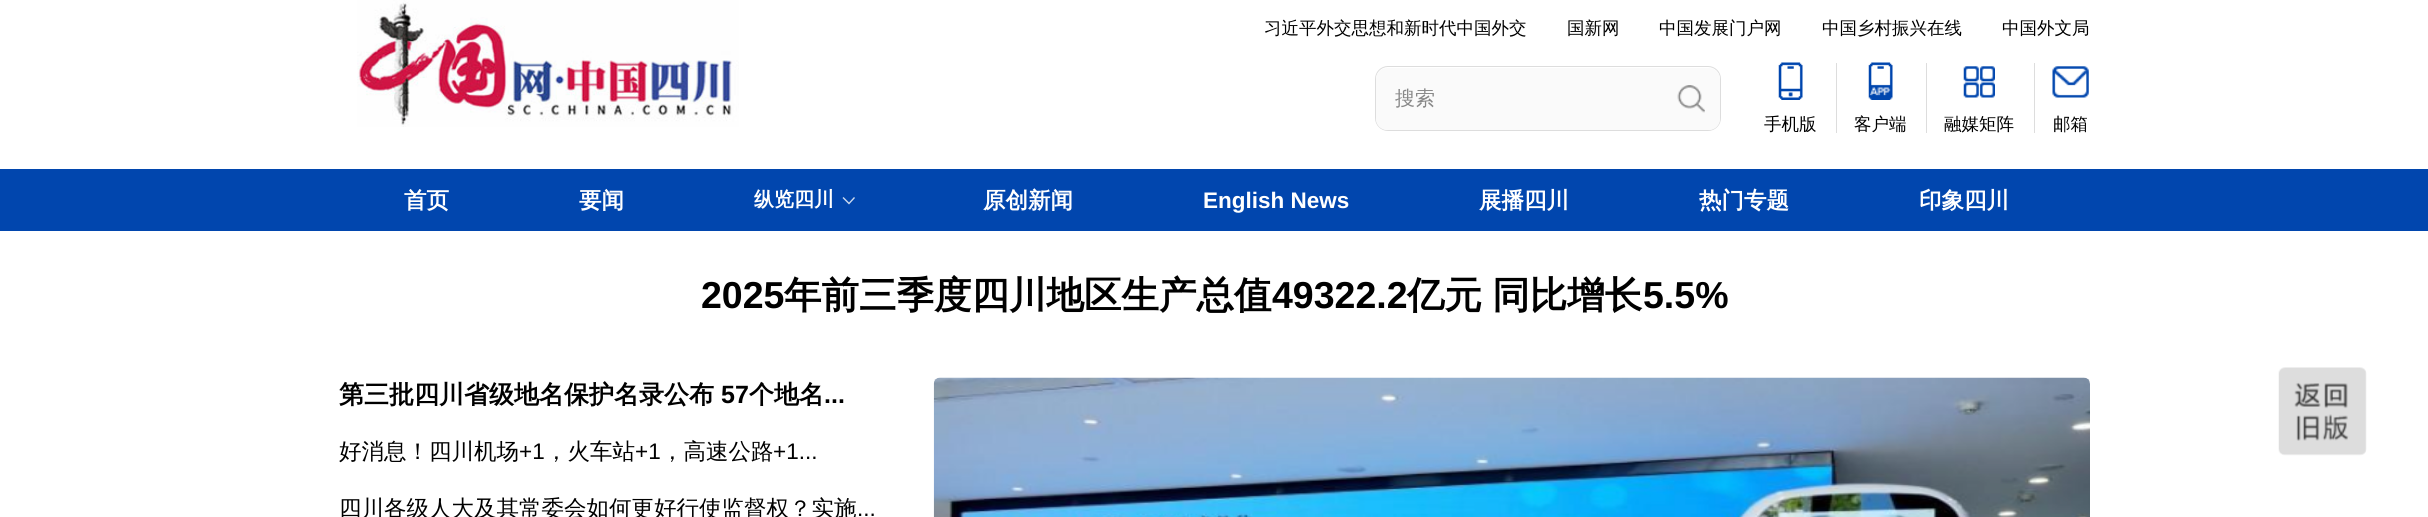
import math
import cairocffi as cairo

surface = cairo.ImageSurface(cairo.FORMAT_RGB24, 2428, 517)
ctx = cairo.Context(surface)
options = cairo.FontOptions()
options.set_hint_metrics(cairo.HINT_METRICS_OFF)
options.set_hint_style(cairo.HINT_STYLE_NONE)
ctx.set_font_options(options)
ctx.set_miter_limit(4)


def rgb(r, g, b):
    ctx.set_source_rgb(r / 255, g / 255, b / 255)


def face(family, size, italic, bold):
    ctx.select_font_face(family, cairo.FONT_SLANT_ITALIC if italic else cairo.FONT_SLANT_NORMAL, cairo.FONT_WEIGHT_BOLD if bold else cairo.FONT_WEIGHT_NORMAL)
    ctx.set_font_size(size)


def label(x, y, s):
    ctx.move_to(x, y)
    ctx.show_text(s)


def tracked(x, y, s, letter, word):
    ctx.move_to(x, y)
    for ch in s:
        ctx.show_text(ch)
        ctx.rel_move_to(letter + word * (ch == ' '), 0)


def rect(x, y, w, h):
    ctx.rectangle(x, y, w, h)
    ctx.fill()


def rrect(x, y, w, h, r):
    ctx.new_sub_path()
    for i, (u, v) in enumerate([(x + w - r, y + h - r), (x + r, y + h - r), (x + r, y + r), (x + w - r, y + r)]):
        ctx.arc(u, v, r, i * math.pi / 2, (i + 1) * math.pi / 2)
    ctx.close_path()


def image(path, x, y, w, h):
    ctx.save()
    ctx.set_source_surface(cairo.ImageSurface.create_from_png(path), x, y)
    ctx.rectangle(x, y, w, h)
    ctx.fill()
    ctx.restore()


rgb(255, 255, 255)
ctx.paint()
image('image0.png', 357, 0, 382, 127)
face('WenQuanYi Zen Hei Medium', 17.5, 0, 0)
rgb(0, 0, 0)
label(1264, 34, '习近平外交思想和新时代中国外交')
label(1567, 34, '国新网')
label(1659, 34, '中国发展门户网')
label(1822, 34, '中国乡村振兴在线')
label(2002, 34, '中国外文局')
rrect(1375.5, 66.5, 345, 64, 12.5)
rgb(221, 221, 221)
ctx.set_line_width(1)
ctx.stroke()
rgb(250, 250, 250)
ctx.new_path()
ctx.move_to(1387, 68)
ctx.line_to(1663, 68)
ctx.line_to(1663, 130)
ctx.line_to(1387, 130)
ctx.curve_to(1381, 130, 1376, 125, 1376, 119)
ctx.line_to(1376, 79)
ctx.curve_to(1376, 73, 1381, 68, 1387, 68)
ctx.close_path()
ctx.fill()
face('WenQuanYi Zen Hei Medium', 20, 0, 0)
rgb(136, 136, 136)
label(1395, 105, '搜索')
rgb(250, 250, 250)
ctx.new_path()
ctx.move_to(1663, 68)
ctx.line_to(1709, 68)
ctx.curve_to(1715, 68, 1720, 73, 1720, 79)
ctx.line_to(1720, 119)
ctx.curve_to(1720, 125, 1715, 130, 1709, 130)
ctx.line_to(1663, 130)
ctx.close_path()
ctx.fill()
image('image1.png', 1677, 85, 28, 28)
image('image2.png', 1778, 62, 25, 38)
face('WenQuanYi Zen Hei Medium', 17.5, 0, 0)
rgb(0, 0, 0)
label(1764, 130, '手机版')
rgb(221, 221, 221)
rect(1836, 63, 1, 70)
image('image3.png', 1868, 62, 25, 38)
rgb(0, 0, 0)
label(1854, 130, '客户端')
rgb(221, 221, 221)
rect(1926, 63, 1, 70)
image('image4.png', 1963, 66, 32, 32)
rgb(0, 0, 0)
label(1944, 130, '融媒矩阵')
rgb(221, 221, 221)
rect(2034, 63, 1, 70)
image('image5.png', 2052, 66, 37, 32)
rgb(0, 0, 0)
label(2053, 130, '邮箱')
rgb(1, 70, 174)
rect(0, 169, 2428, 62)
face('WenQuanYi Zen Hei', 22.5, 0, 1)
rgb(255, 255, 255)
label(404, 208, '首页')
label(579, 208, '要闻')
face('WenQuanYi Zen Hei', 20, 0, 1)
label(754, 206, '纵览四川')
rgb(204, 218, 239)
ctx.new_path()
ctx.move_to(855, 198)
ctx.line_to(849, 204.5)
ctx.line_to(849, 202.5)
ctx.line_to(854, 197)
ctx.close_path()
ctx.move_to(849, 204.5)
ctx.line_to(842.5, 198)
ctx.line_to(843.5, 197)
ctx.line_to(849, 202.5)
ctx.close_path()
ctx.fill()
face('WenQuanYi Zen Hei', 22.5, 0, 1)
rgb(255, 255, 255)
label(983, 208, '原创新闻')
face('Liberation Sans', 22.5, 0, 1)
label(1203, 208, 'English News')
face('WenQuanYi Zen Hei', 22.5, 0, 1)
label(1479, 208, '展播四川')
label(1699, 208, '热门专题')
label(1919, 208, '印象四川')
face('Liberation Sans', 37.5, 0, 1)
rgb(0, 0, 0)
label(701, 308, '2025')
face('WenQuanYi Zen Hei', 37.5, 0, 1)
label(784, 308, '年前三季度四川地区生产总值')
face('Liberation Sans', 37.5, 0, 1)
label(1272, 308, '49322.2')
face('WenQuanYi Zen Hei', 37.5, 0, 1)
tracked(1407, 308, '亿元 同比增长', 0, -1)
face('Liberation Sans', 37.5, 0, 1)
label(1643, 308, '5.5%')
face('WenQuanYi Zen Hei', 25, 0, 1)
label(339, 403, '第三批四川省级地名保护名录公布')
face('Liberation Sans', 25, 0, 1)
label(721, 403, '57')
face('WenQuanYi Zen Hei', 25, 0, 1)
label(749, 403, '个地名')
face('Liberation Sans', 25, 0, 1)
label(824, 403, '...')
face('WenQuanYi Zen Hei Medium', 22.5, 0, 0)
label(339, 459, '好消息！四川机场')
face('Liberation Sans', 22.5, 0, 0)
label(519, 459, '+1')
face('WenQuanYi Zen Hei Medium', 22.5, 0, 0)
label(545, 459, '，火车站')
face('Liberation Sans', 22.5, 0, 0)
label(635, 459, '+1')
face('WenQuanYi Zen Hei Medium', 22.5, 0, 0)
label(661, 459, '，高速公路')
face('Liberation Sans', 22.5, 0, 0)
label(773, 459, '+1...')
face('WenQuanYi Zen Hei Medium', 22.5, 0, 0)
label(339, 516, '四川各级人大及其常委会如何更好行使监督权？实施')
face('Liberation Sans', 22.5, 0, 0)
label(857, 516, '...')
image('image6.png', 933, 377, 1157, 140)
image('image7.png', 2278, 367, 89, 89)
surface.write_to_png('render.png')
